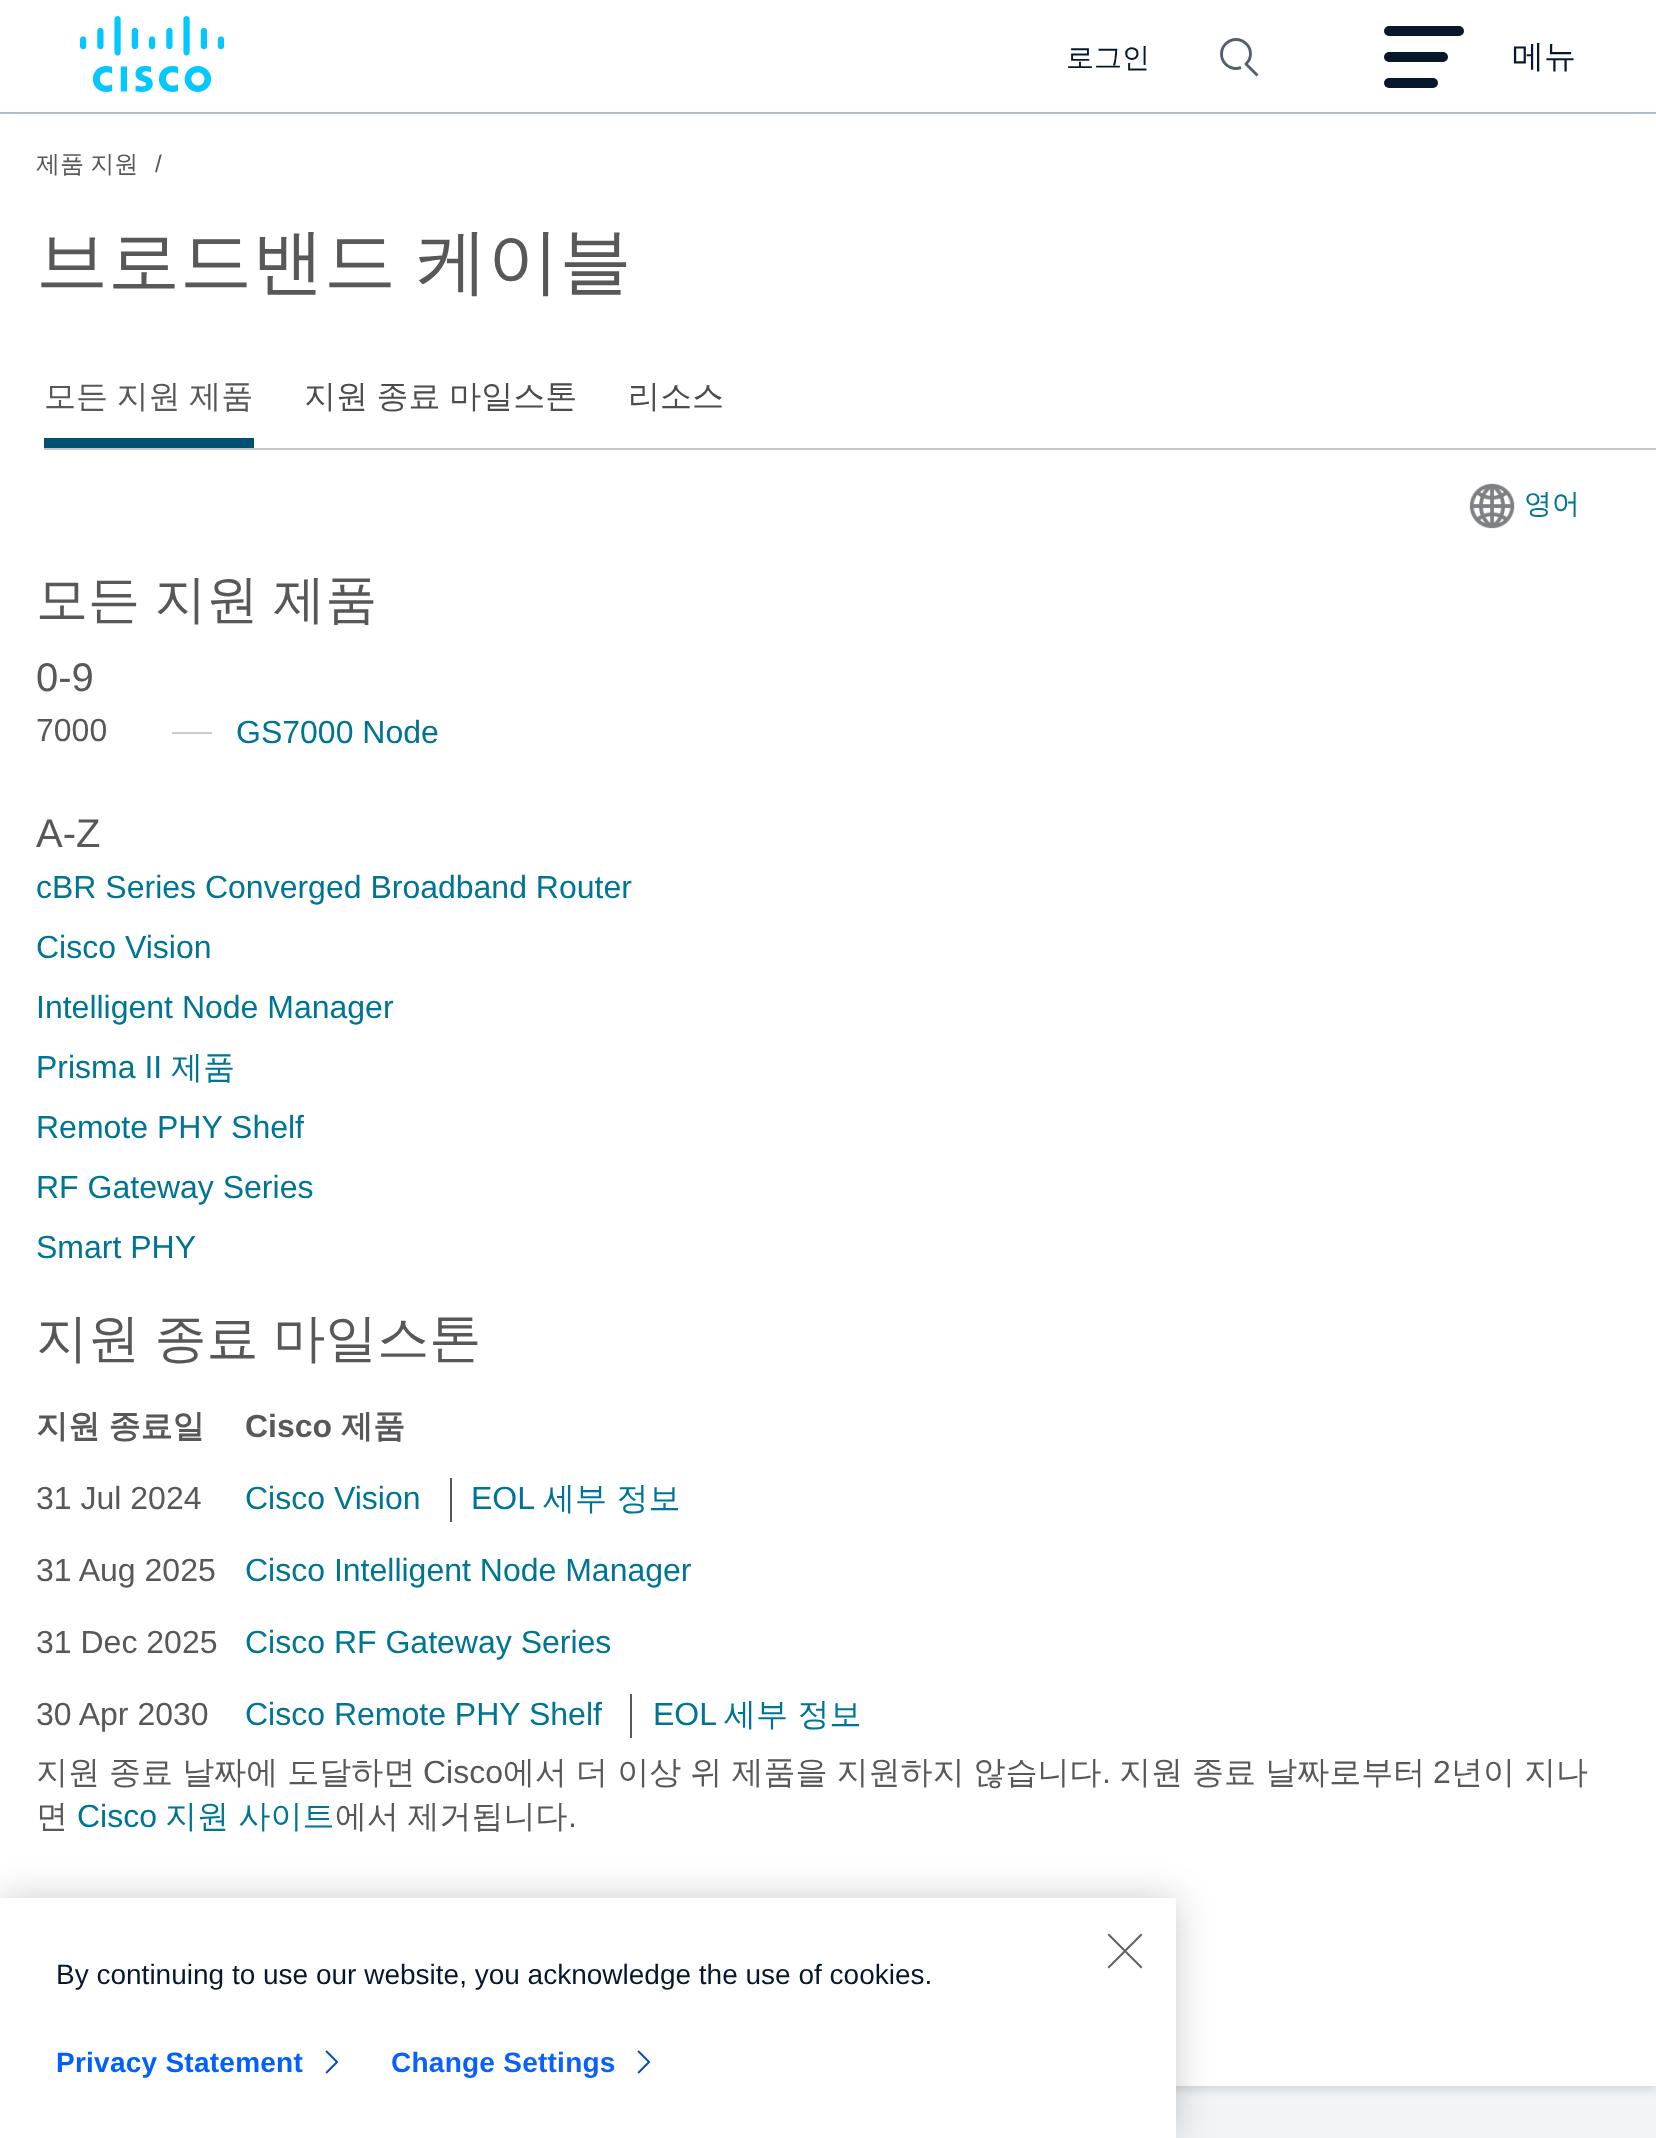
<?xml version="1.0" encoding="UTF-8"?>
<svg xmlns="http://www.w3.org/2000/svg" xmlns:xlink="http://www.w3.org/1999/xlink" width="1656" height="2138">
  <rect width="100%" height="100%" fill="#f2f5f7" />
  <rect width="1656" height="112" fill="#ffffff" />
  <rect y="112" width="1656" height="2" fill="#b9c1c9" />
  <image x="80" y="16" width="144" height="76" xlink:href="image1.png" />
  <path d="M 1241 67.5 c -1.5 0.5 -3.5 1 -5 1 c -8 0 -14.5 -6.5 -14.5 -14.5 c 0 -8 6.5 -14.5 14.5 -14.5 c 8 0 14.5 6.5 14.5 14.5 c 0 4 -2 7.5 -4.5 10 l 11.5 11.5" fill="none" stroke="#536070" stroke-width="2.9" stroke-linejoin="round" />
  <rect x="1384" y="26" width="80" height="10" rx="5" fill="#07182d" />
  <rect x="1384" y="52" width="64" height="10" rx="5" fill="#07182d" />
  <rect x="1384" y="78" width="54" height="10" rx="5" fill="#07182d" />
  <rect y="118" width="1656" height="1972" fill="#000000" fill-opacity="0.12" filter="blur(5px)" />
  <rect y="114" width="1656" height="1972" fill="#ffffff" />
  <rect x="44" y="448" width="1612" height="2" fill="#c6c7ca" />
  <rect x="44" y="438" width="210" height="10" fill="#005073" />
  <image x="1469" y="483" width="46" height="46" xlink:href="image2.png" />
  <rect x="172" y="732" width="40" height="2" fill="#cccccc" />
  <rect x="450" y="1478" width="2" height="44" fill="#58585b" />
  <rect x="630" y="1694" width="2" height="44" fill="#58585b" />
  <rect y="1898" width="1176" height="240" fill="#000000" fill-opacity="0.2" filter="blur(18px)" />
  <rect y="1898" width="1176" height="240" fill="#ffffff" />
  <image x="1107" y="1933" width="36" height="36" xlink:href="image3.png" />
  <image x="325" y="2050" width="13" height="24" xlink:href="image4.png" />
  <image x="637" y="2050" width="13" height="24" xlink:href="image4.png" />
  <text x="1066" y="67" style="font-family: WenQuanYi Zen Hei; font-size: 28px; font-weight: 500; fill: #07182d">로그인</text>
  <text x="1512" y="67" style="font-family: WenQuanYi Zen Hei; font-size: 32px; font-weight: 500; fill: #07182d">메뉴</text>
  <text x="36" y="172" word-spacing="-1" style="font-family: WenQuanYi Zen Hei; font-size: 24px; font-weight: 500; fill: #58585b">제품 지원</text>
  <text x="155" y="172" style="font-family: Liberation Sans; font-size: 24px; fill: #58585b">/</text>
  <text x="36" y="286" word-spacing="-2" style="font-family: WenQuanYi Zen Hei; font-size: 72px; font-weight: 500; fill: #58585b">브로드밴드 케이블</text>
  <text x="44" y="407" word-spacing="-1" style="font-family: WenQuanYi Zen Hei; font-size: 32px; font-weight: 500; fill: #58585b">모든 지원 제품</text>
  <text x="304" y="407" word-spacing="-1" style="font-family: WenQuanYi Zen Hei; font-size: 32px; font-weight: 500; fill: #4d4c4c">지원 종료 마일스톤</text>
  <text x="628" y="407" style="font-family: WenQuanYi Zen Hei; font-size: 32px; font-weight: 500; fill: #4d4c4c">리소스</text>
  <text x="1524" y="513" style="font-family: WenQuanYi Zen Hei; font-size: 28px; font-weight: 500; fill: #007493">영어</text>
  <text x="36" y="617" word-spacing="-1" style="font-family: WenQuanYi Zen Hei; font-size: 52px; font-weight: 500; fill: #58585b">모든 지원 제품</text>
  <text x="36" y="691" style="font-family: Liberation Sans; font-size: 40px; fill: #58585b">0-9</text>
  <text x="36" y="741" style="font-family: Liberation Sans; font-size: 32px; fill: #58585b">7000</text>
  <text x="236" y="743" style="font-family: Liberation Sans; font-size: 32px; fill: #007493">GS7000 Node</text>
  <text x="36" y="847" style="font-family: Liberation Sans; font-size: 40px; fill: #58585b">A-Z</text>
  <text x="36" y="898" style="font-family: Liberation Sans; font-size: 32px; fill: #007493">cBR Series Converged Broadband Router</text>
  <text x="36" y="958" style="font-family: Liberation Sans; font-size: 32px; fill: #007493">Cisco Vision</text>
  <text x="36" y="1018" style="font-family: Liberation Sans; font-size: 32px; fill: #007493">Intelligent Node Manager</text>
  <text x="36" y="1078" style="font-family: Liberation Sans; font-size: 32px; fill: #007493">Prisma II</text>
  <text x="171" y="1078" style="font-family: WenQuanYi Zen Hei; font-size: 32px; font-weight: 500; fill: #007493">제품</text>
  <text x="36" y="1138" style="font-family: Liberation Sans; font-size: 32px; fill: #007493">Remote PHY Shelf</text>
  <text x="36" y="1198" style="font-family: Liberation Sans; font-size: 32px; fill: #007493">RF Gateway Series</text>
  <text x="36" y="1258" style="font-family: Liberation Sans; font-size: 32px; fill: #007493">Smart PHY</text>
  <text x="36" y="1356" word-spacing="-1" style="font-family: WenQuanYi Zen Hei; font-size: 52px; font-weight: 500; fill: #58585b">지원 종료 마일스톤</text>
  <text x="36" y="1437" word-spacing="-1" style="font-family: WenQuanYi Zen Hei; font-size: 32px; font-weight: bold; fill: #58585b">지원 종료일</text>
  <text x="245" y="1437" style="font-family: Liberation Sans; font-size: 32px; font-weight: bold; fill: #58585b">Cisco</text>
  <text x="341" y="1437" style="font-family: WenQuanYi Zen Hei; font-size: 32px; font-weight: bold; fill: #58585b">제품</text>
  <text x="36" y="1509" style="font-family: Liberation Sans; font-size: 32px; fill: #58585b">31 Jul 2024</text>
  <text x="245" y="1509" style="font-family: Liberation Sans; font-size: 32px; fill: #007493">Cisco Vision</text>
  <text x="471" y="1509" style="font-family: Liberation Sans; font-size: 32px; fill: #007493">EOL</text>
  <text x="543" y="1509" style="font-family: WenQuanYi Zen Hei; font-size: 32px; font-weight: 500; fill: #007493">세부 정보</text>
  <text x="36" y="1581" style="font-family: Liberation Sans; font-size: 32px; fill: #58585b">31 Aug 2025</text>
  <text x="245" y="1581" style="font-family: Liberation Sans; font-size: 32px; fill: #007493">Cisco Intelligent Node Manager</text>
  <text x="36" y="1653" style="font-family: Liberation Sans; font-size: 32px; fill: #58585b">31 Dec 2025</text>
  <text x="245" y="1653" style="font-family: Liberation Sans; font-size: 32px; fill: #007493">Cisco RF Gateway Series</text>
  <text x="36" y="1725" style="font-family: Liberation Sans; font-size: 32px; fill: #58585b">30 Apr 2030</text>
  <text x="245" y="1725" style="font-family: Liberation Sans; font-size: 32px; fill: #007493">Cisco Remote PHY Shelf</text>
  <text x="653" y="1725" style="font-family: Liberation Sans; font-size: 32px; fill: #007493">EOL</text>
  <text x="724" y="1725" style="font-family: WenQuanYi Zen Hei; font-size: 32px; font-weight: 500; fill: #007493">세부 정보</text>
  <text x="36" y="1783" word-spacing="-0.5" style="font-family: WenQuanYi Zen Hei; font-size: 32px; font-weight: 500; fill: #58585b">지원 종료 날짜에 도달하면</text>
  <text x="423" y="1783" style="font-family: Liberation Sans; font-size: 32px; fill: #58585b">Cisco</text>
  <text x="503" y="1783" word-spacing="-0.5" style="font-family: WenQuanYi Zen Hei; font-size: 32px; font-weight: 500; fill: #58585b">에서 더 이상 위 제품을 지원하지 않습니다</text>
  <text x="1102" y="1783" style="font-family: Liberation Sans; font-size: 32px; fill: #58585b">.</text>
  <text x="1119" y="1783" word-spacing="-0.5" style="font-family: WenQuanYi Zen Hei; font-size: 32px; font-weight: 500; fill: #58585b">지원 종료 날짜로부터</text>
  <text x="1433" y="1783" style="font-family: Liberation Sans; font-size: 32px; fill: #58585b">2</text>
  <text x="1451" y="1783" word-spacing="-0.5" style="font-family: WenQuanYi Zen Hei; font-size: 32px; font-weight: 500; fill: #58585b">년이 지나</text>
  <text x="36" y="1827" style="font-family: WenQuanYi Zen Hei; font-size: 32px; font-weight: 500; fill: #58585b">면</text>
  <text x="77" y="1827" style="font-family: Liberation Sans; font-size: 32px; fill: #007493">Cisco</text>
  <text x="165" y="1827" style="font-family: WenQuanYi Zen Hei; font-size: 32px; font-weight: 500; fill: #007493">지원 사이트</text>
  <text x="335" y="1827" word-spacing="-1" style="font-family: WenQuanYi Zen Hei; font-size: 32px; font-weight: 500; fill: #58585b">에서 제거됩니다</text>
  <text x="568" y="1827" style="font-family: Liberation Sans; font-size: 32px; fill: #58585b">.</text>
  <text x="56" y="1984" style="font-family: Liberation Sans; font-size: 28px; fill: #07182d">By continuing to use our website, you acknowledge the use of cookies.</text>
  <text x="56" y="2072" style="font-family: Liberation Sans; font-size: 28px; font-weight: bold; letter-spacing: 0.25px; fill: #0060ff">Privacy Statement</text>
  <text x="391" y="2072" style="font-family: Liberation Sans; font-size: 28px; font-weight: bold; letter-spacing: 0.25px; fill: #0a60ff">Change Settings</text>
</svg>
